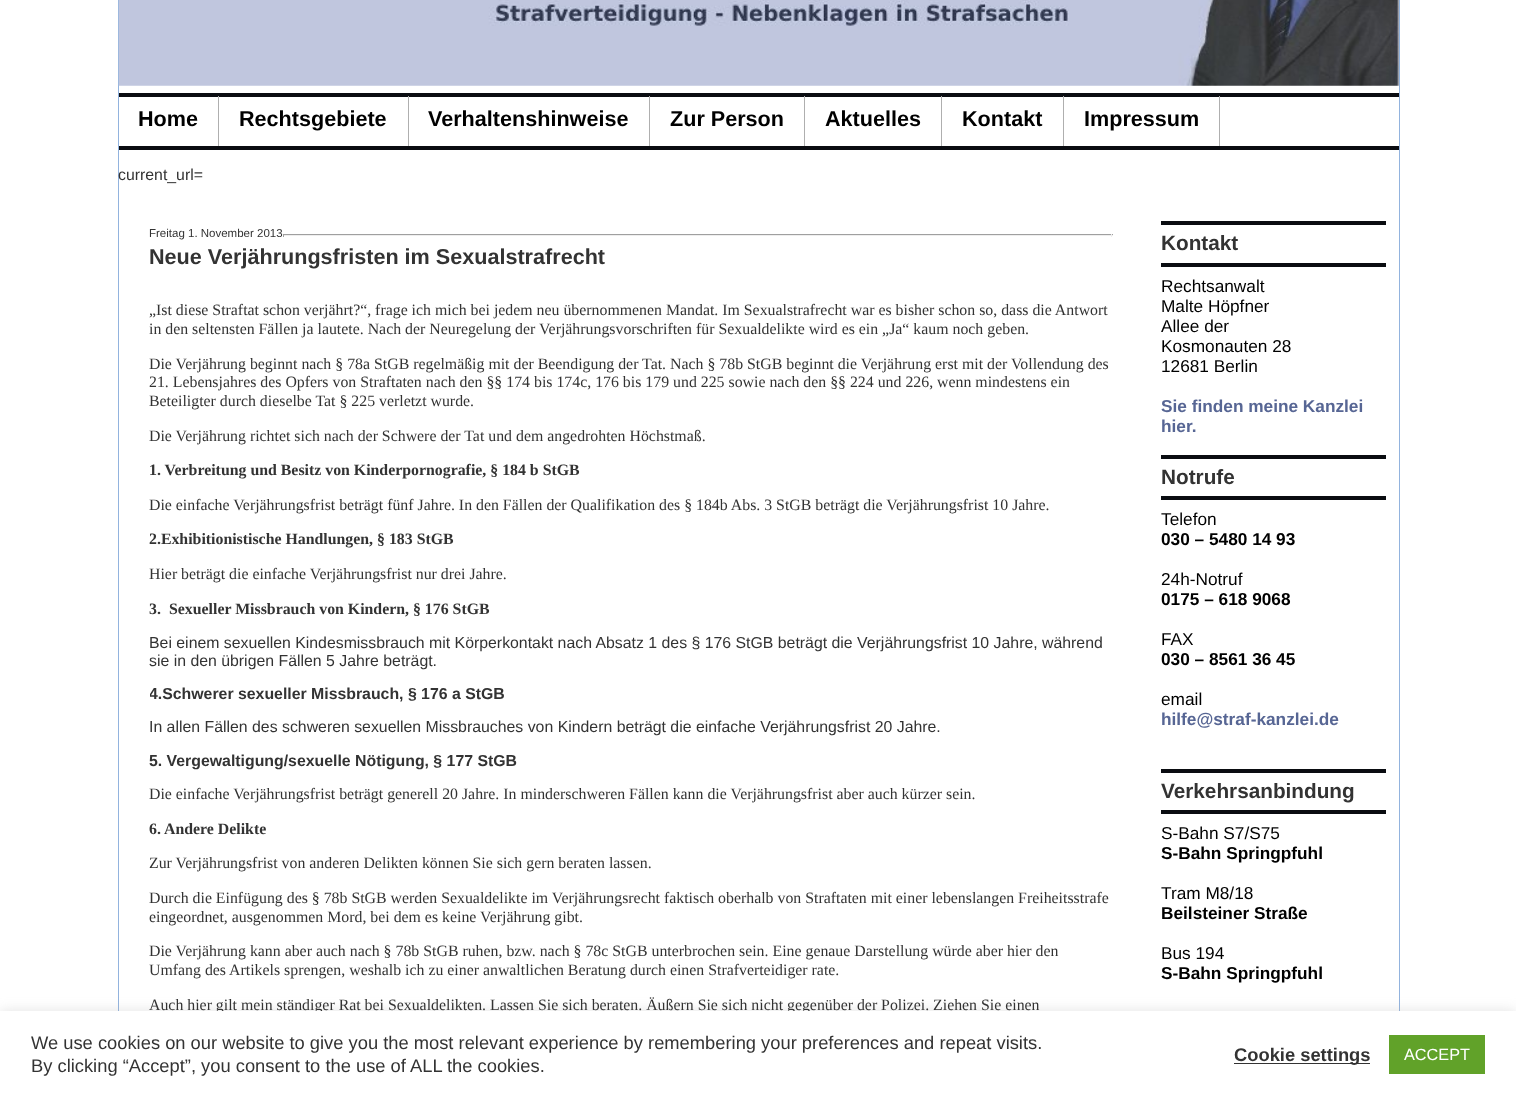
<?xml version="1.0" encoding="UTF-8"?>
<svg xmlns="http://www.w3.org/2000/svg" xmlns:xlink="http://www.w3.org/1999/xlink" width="1516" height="1097">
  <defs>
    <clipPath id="clip1"><rect x="150" y="286" width="963" height="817" /></clipPath>
  </defs>
  <rect width="100%" height="100%" fill="#ffffff" />
  <rect x="118.5" y="-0.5" width="1281" height="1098" fill="none" stroke="#92b3de" />
  <image x="118" y="0" width="1281" height="86" xlink:href="image1.png" />
  <rect x="119" y="93" width="1280" height="4" fill="#0a0c11" />
  <rect x="119" y="146" width="1280" height="4" fill="#0a0c11" />
  <rect x="218" y="96" width="1" height="50" fill="#afafaf" />
  <rect x="408" y="96" width="1" height="50" fill="#afafaf" />
  <rect x="649" y="96" width="1" height="50" fill="#afafaf" />
  <rect x="804" y="96" width="1" height="50" fill="#afafaf" />
  <rect x="941" y="96" width="1" height="50" fill="#afafaf" />
  <rect x="1063" y="96" width="1" height="50" fill="#afafaf" />
  <rect x="1219" y="96" width="1" height="50" fill="#afafaf" />
  <rect x="283" y="234" width="830" height="1" fill="#9f9f9f" />
  <rect x="1111" y="234" width="1" height="3" fill="#eeeeee" />
  <rect x="283" y="235" width="830" height="1" fill="#eeeeee" />
  <rect x="283" y="234" width="1" height="3" fill="#9f9f9f" />
  <rect x="1161" y="221" width="225" height="4" fill="#0a0c11" />
  <rect x="1161" y="263" width="225" height="4" fill="#0a0c11" />
  <rect x="1161" y="455" width="225" height="4" fill="#0a0c11" />
  <rect x="1161" y="496" width="225" height="4" fill="#0a0c11" />
  <rect x="1161" y="769" width="225" height="4" fill="#0a0c11" />
  <rect x="1161" y="810" width="225" height="4" fill="#0a0c11" />
  <rect y="1010" width="1516" height="86" fill="#acabab" fill-opacity="0.3" filter="blur(6px)" />
  <text x="138" y="126" style="font-family: Liberation Sans; font-size: 21.6px; font-weight: bold; fill: #000000">Home</text>
  <text x="239" y="126" style="font-family: Liberation Sans; font-size: 21.6px; font-weight: bold; fill: #000000">Rechtsgebiete</text>
  <text x="428" y="126" style="font-family: Liberation Sans; font-size: 21.6px; font-weight: bold; fill: #000000">Verhaltenshinweise</text>
  <text x="670" y="126" style="font-family: Liberation Sans; font-size: 21.6px; font-weight: bold; fill: #000000">Zur Person</text>
  <text x="825" y="126" style="font-family: Liberation Sans; font-size: 21.6px; font-weight: bold; fill: #000000">Aktuelles</text>
  <text x="962" y="126" style="font-family: Liberation Sans; font-size: 21.6px; font-weight: bold; fill: #000000">Kontakt</text>
  <text x="1084" y="126" style="font-family: Liberation Sans; font-size: 21.6px; font-weight: bold; fill: #000000">Impressum</text>
  <text x="118" y="180" style="font-family: Liberation Sans; font-size: 15.85px; fill: #333333">current_url=</text>
  <text x="149" y="237" style="font-family: Liberation Sans; font-size: 11.5px; fill: #333333">Freitag 1. November 2013</text>
  <text x="149" y="264" style="font-family: Liberation Sans; font-size: 21.6px; font-weight: bold; fill: #333333">Neue Verjährungsfristen im Sexualstrafrecht</text>
  <text x="149" y="315" style="font-family: Liberation Serif; font-size: 15.85px; fill: #333333">„Ist diese Straftat schon verjährt?“, frage ich mich bei jedem neu übernommenen Mandat. Im Sexualstrafrecht war es bisher schon so, dass die Antwort</text>
  <text x="149" y="334" style="font-family: Liberation Serif; font-size: 15.85px; fill: #333333">in den seltensten Fällen ja lautete. Nach der Neuregelung der Verjährungsvorschriften für Sexualdelikte wird es ein „Ja“ kaum noch geben.</text>
  <text x="149" y="369" style="font-family: Liberation Serif; font-size: 15.85px; fill: #333333">Die Verjährung beginnt nach § 78a StGB regelmäßig mit der Beendigung der Tat. Nach § 78b StGB beginnt die Verjährung erst mit der Vollendung des</text>
  <text x="149" y="387" style="font-family: Liberation Serif; font-size: 15.85px; fill: #333333">21. Lebensjahres des Opfers von Straftaten nach den §§ 174 bis 174c, 176 bis 179 und 225 sowie nach den §§ 224 und 226, wenn mindestens ein</text>
  <text x="149" y="406" style="font-family: Liberation Serif; font-size: 15.85px; fill: #333333">Beteiligter durch dieselbe Tat § 225 verletzt wurde.</text>
  <text x="149" y="441" style="font-family: Liberation Serif; font-size: 15.85px; fill: #333333">Die Verjährung richtet sich nach der Schwere der Tat und dem angedrohten Höchstmaß.</text>
  <text x="149" y="475" style="font-family: Liberation Serif; font-size: 15.85px; font-weight: bold; fill: #333333">1. Verbreitung und Besitz von Kinderpornografie, § 184 b StGB</text>
  <text x="149" y="510" style="font-family: Liberation Serif; font-size: 15.85px; fill: #333333">Die einfache Verjährungsfrist beträgt fünf Jahre. In den Fällen der Qualifikation des § 184b Abs. 3 StGB beträgt die Verjährungsfrist 10 Jahre.</text>
  <text x="149" y="544" style="font-family: Liberation Serif; font-size: 15.85px; font-weight: bold; fill: #333333">2.Exhibitionistische Handlungen, § 183 StGB</text>
  <text x="149" y="579" style="font-family: Liberation Serif; font-size: 15.85px; fill: #333333">Hier beträgt die einfache Verjährungsfrist nur drei Jahre.</text>
  <text x="149" y="614" style="font-family: Liberation Serif; font-size: 15.85px; font-weight: bold; fill: #333333">3.</text>
  <text x="169" y="614" style="font-family: Liberation Serif; font-size: 15.85px; font-weight: bold; fill: #333333">Sexueller Missbrauch von Kindern, § 176 StGB</text>
  <text x="149" y="648" style="font-family: Liberation Sans; font-size: 15.85px; fill: #333333">Bei einem sexuellen Kindesmissbrauch mit Körperkontakt nach Absatz 1 des § 176 StGB beträgt die Verjährungsfrist 10 Jahre, während</text>
  <text x="149" y="666" style="font-family: Liberation Sans; font-size: 15.85px; fill: #333333">sie in den übrigen Fällen 5 Jahre beträgt.</text>
  <g clip-path="url(#clip1)">
    <text x="149" y="699" style="font-family: Liberation Sans; font-size: 15.85px; font-weight: bold; fill: #333333">4.Schwerer sexueller Missbrauch, § 176 a StGB</text>
  </g>
  <text x="149" y="732" style="font-family: Liberation Sans; font-size: 15.85px; fill: #333333">In allen Fällen des schweren sexuellen Missbrauches von Kindern beträgt die einfache Verjährungsfrist 20 Jahre.</text>
  <text x="149" y="766" style="font-family: Liberation Sans; font-size: 15.85px; font-weight: bold; fill: #333333">5. Vergewaltigung/sexuelle Nötigung, § 177 StGB</text>
  <text x="149" y="799" style="font-family: Liberation Serif; font-size: 15.85px; fill: #333333">Die einfache Verjährungsfrist beträgt generell 20 Jahre. In minderschweren Fällen kann die Verjährungsfrist aber auch kürzer sein.</text>
  <text x="149" y="834" style="font-family: Liberation Serif; font-size: 15.85px; font-weight: bold; fill: #333333">6. Andere Delikte</text>
  <text x="149" y="868" style="font-family: Liberation Serif; font-size: 15.85px; fill: #333333">Zur Verjährungsfrist von anderen Delikten können Sie sich gern beraten lassen.</text>
  <text x="149" y="903" style="font-family: Liberation Serif; font-size: 15.85px; fill: #333333">Durch die Einfügung des § 78b StGB werden Sexualdelikte im Verjährungsrecht faktisch oberhalb von Straftaten mit einer lebenslangen Freiheitsstrafe</text>
  <text x="149" y="922" style="font-family: Liberation Serif; font-size: 15.85px; fill: #333333">eingeordnet, ausgenommen Mord, bei dem es keine Verjährung gibt.</text>
  <text x="149" y="956" style="font-family: Liberation Serif; font-size: 15.85px; fill: #333333">Die Verjährung kann aber auch nach § 78b StGB ruhen, bzw. nach § 78c StGB unterbrochen sein. Eine genaue Darstellung würde aber hier den</text>
  <text x="149" y="975" style="font-family: Liberation Serif; font-size: 15.85px; fill: #333333">Umfang des Artikels sprengen, weshalb ich zu einer anwaltlichen Beratung durch einen Strafverteidiger rate.</text>
  <text x="149" y="1010" style="font-family: Liberation Serif; font-size: 15.85px; fill: #333333">Auch hier gilt mein ständiger Rat bei Sexualdelikten. Lassen Sie sich beraten. Äußern Sie sich nicht gegenüber der Polizei. Ziehen Sie einen</text>
  <text x="1161" y="250" style="font-family: Liberation Sans; font-size: 20.75px; font-weight: bold; fill: #333333">Kontakt</text>
  <text x="1161" y="292" style="font-family: Liberation Sans; font-size: 17.25px; fill: #000000">Rechtsanwalt</text>
  <text x="1161" y="312" style="font-family: Liberation Sans; font-size: 17.25px; fill: #000000">Malte Höpfner</text>
  <text x="1161" y="332" style="font-family: Liberation Sans; font-size: 17.25px; fill: #000000">Allee der</text>
  <text x="1161" y="352" style="font-family: Liberation Sans; font-size: 17.25px; fill: #000000">Kosmonauten 28</text>
  <text x="1161" y="372" style="font-family: Liberation Sans; font-size: 17.25px; fill: #000000">12681 Berlin</text>
  <text x="1161" y="412" style="font-family: Liberation Sans; font-size: 17.25px; font-weight: bold; fill: #576694">Sie finden meine Kanzlei</text>
  <text x="1161" y="432" style="font-family: Liberation Sans; font-size: 17.25px; font-weight: bold; fill: #576694">hier.</text>
  <text x="1161" y="484" style="font-family: Liberation Sans; font-size: 20.75px; font-weight: bold; fill: #333333">Notrufe</text>
  <text x="1161" y="525" style="font-family: Liberation Sans; font-size: 17.25px; fill: #000000">Telefon</text>
  <text x="1161" y="545" style="font-family: Liberation Sans; font-size: 17.25px; font-weight: bold; fill: #000000">030 – 5480 14 93</text>
  <text x="1161" y="585" style="font-family: Liberation Sans; font-size: 17.25px; fill: #000000">24h-Notruf</text>
  <text x="1161" y="605" style="font-family: Liberation Sans; font-size: 17.25px; font-weight: bold; fill: #000000">0175 – 618 9068</text>
  <text x="1161" y="645" style="font-family: Liberation Sans; font-size: 17.25px; fill: #000000">FAX</text>
  <text x="1161" y="665" style="font-family: Liberation Sans; font-size: 17.25px; font-weight: bold; fill: #000000">030 – 8561 36 45</text>
  <text x="1161" y="705" style="font-family: Liberation Sans; font-size: 17.25px; fill: #000000">email</text>
  <text x="1161" y="725" style="font-family: Liberation Sans; font-size: 17.25px; font-weight: bold; fill: #576694">hilfe@straf-kanzlei.de</text>
  <text x="1161" y="798" style="font-family: Liberation Sans; font-size: 20.75px; font-weight: bold; fill: #333333">Verkehrsanbindung</text>
  <text x="1161" y="839" style="font-family: Liberation Sans; font-size: 17.25px; fill: #000000">S-Bahn S7/S75</text>
  <text x="1161" y="859" style="font-family: Liberation Sans; font-size: 17.25px; font-weight: bold; fill: #000000">S-Bahn Springpfuhl</text>
  <text x="1161" y="899" style="font-family: Liberation Sans; font-size: 17.25px; fill: #000000">Tram M8/18</text>
  <text x="1161" y="919" style="font-family: Liberation Sans; font-size: 17.25px; font-weight: bold; fill: #000000">Beilsteiner Straße</text>
  <text x="1161" y="959" style="font-family: Liberation Sans; font-size: 17.25px; fill: #000000">Bus 194</text>
  <text x="1161" y="979" style="font-family: Liberation Sans; font-size: 17.25px; font-weight: bold; fill: #000000">S-Bahn Springpfuhl</text>
  <rect y="1011" width="1516" height="86" fill="#ffffff" />
  <text x="31" y="1049" style="font-family: Liberation Sans; font-size: 18.33px; fill: #333333">We use cookies on our website to give you the most relevant experience by remembering your preferences and repeat visits.</text>
  <text x="31" y="1072" style="font-family: Liberation Sans; font-size: 18.33px; fill: #333333">By clicking “Accept”, you consent to the use of ALL the cookies.</text>
  <rect x="1234" y="1063" width="136" height="1" fill="#333333" />
  <text x="1234" y="1061" style="font-family: Liberation Sans; font-size: 18.33px; font-weight: bold; fill: #333333">Cookie settings</text>
  <rect x="1389" y="1035" width="96" height="39" fill="#61a229" />
  <text x="1404" y="1060" style="font-family: Liberation Sans; font-size: 16.25px; fill: #ffffff">ACCEPT</text>
</svg>
